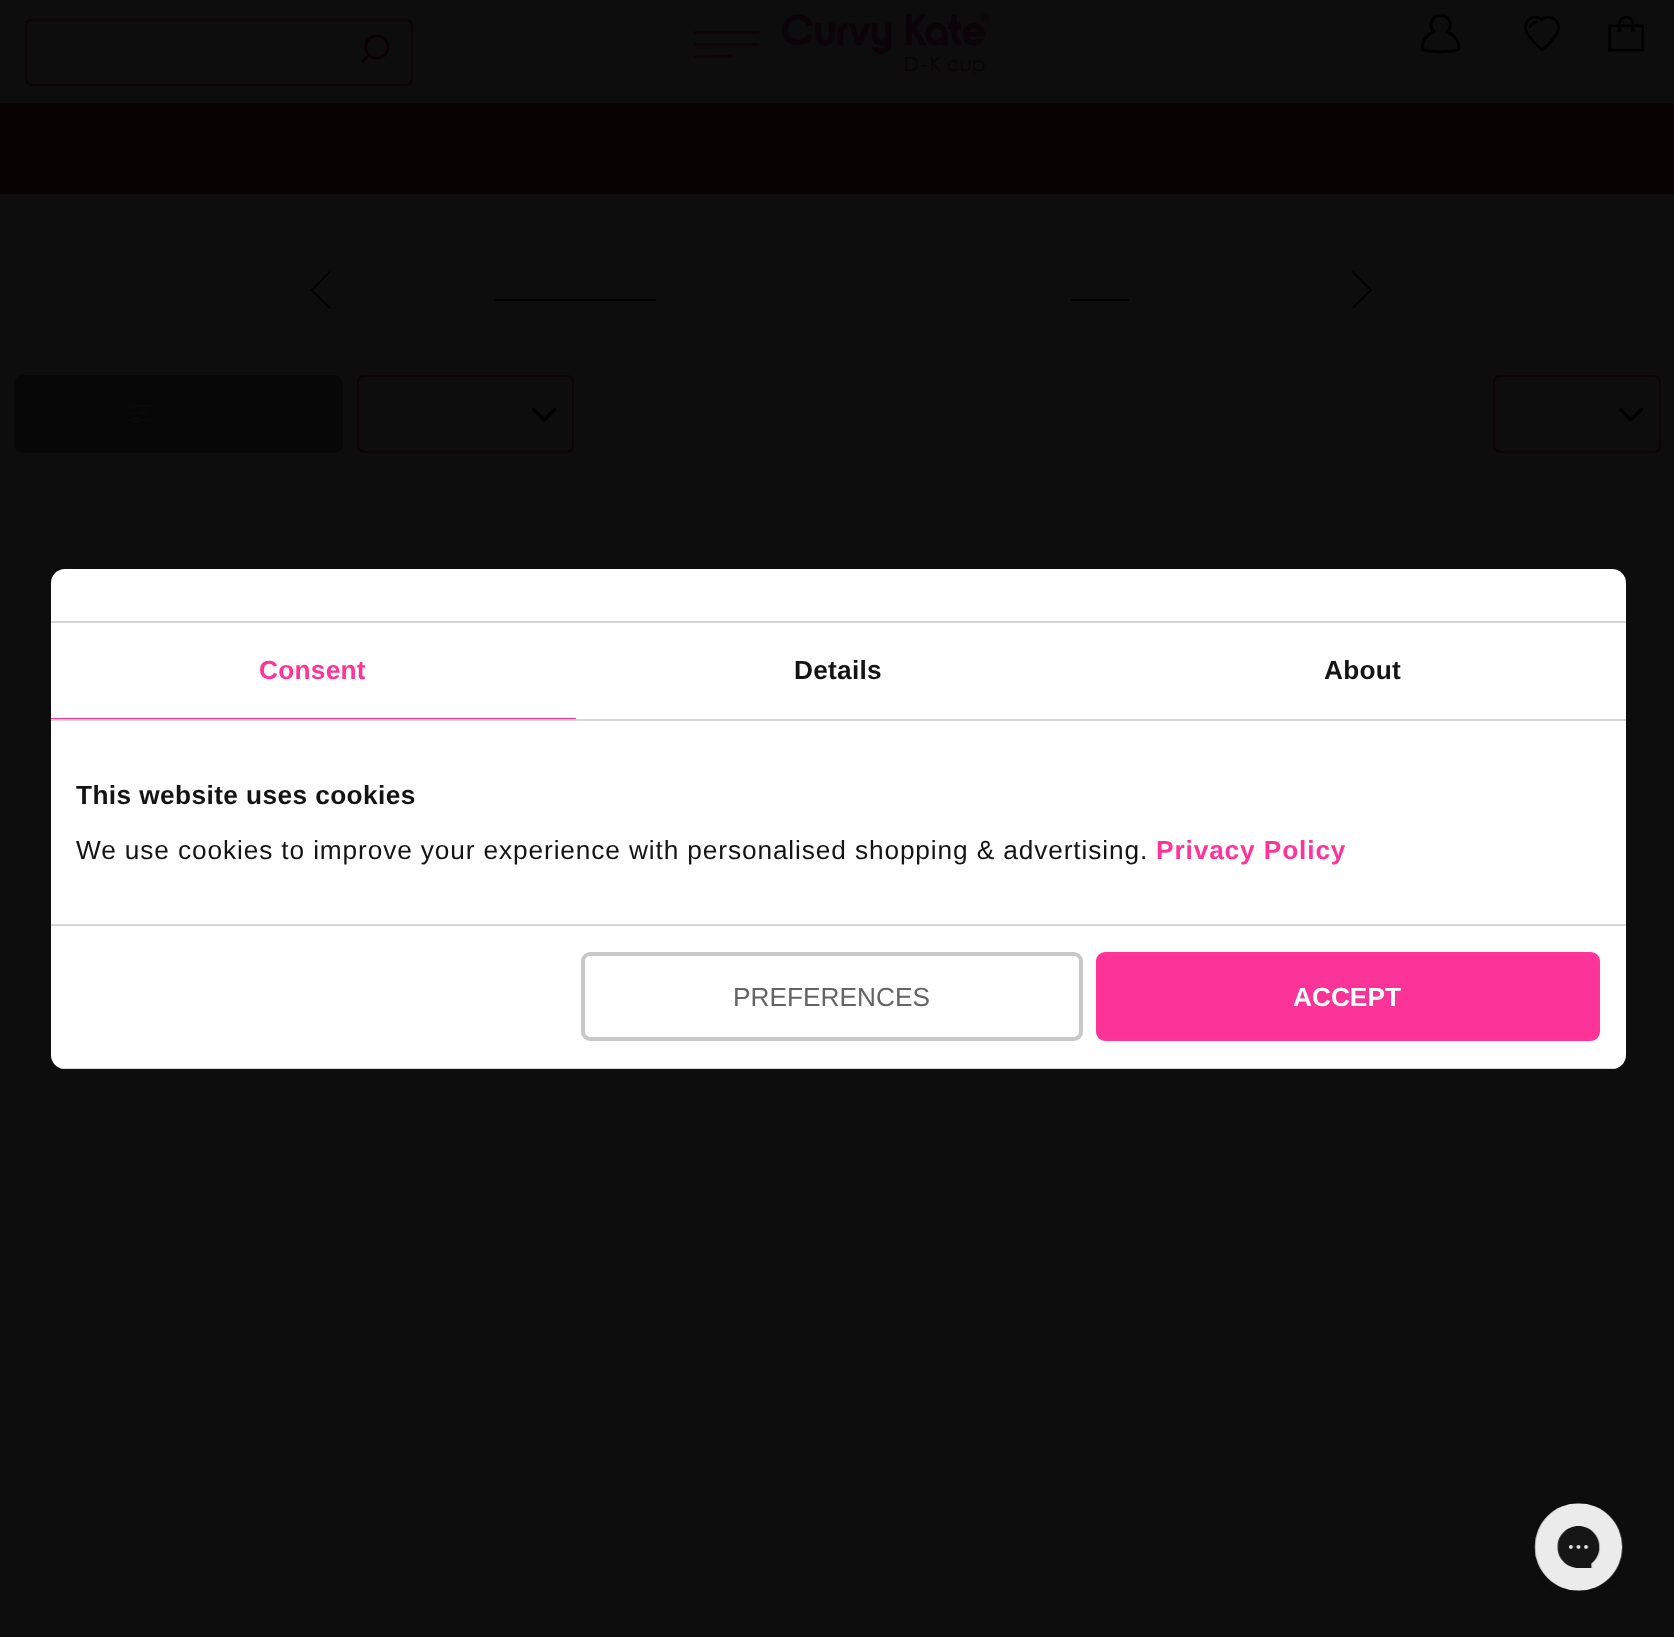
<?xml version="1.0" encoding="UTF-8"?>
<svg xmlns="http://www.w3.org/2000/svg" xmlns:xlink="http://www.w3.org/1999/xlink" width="1674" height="1637">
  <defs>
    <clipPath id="clip1"><rect x="51" y="569" width="1575" height="500" rx="14" /></clipPath>
  </defs>
  <rect width="100%" height="100%" fill="#0d0d0d" />
  <rect x="26" y="20" width="386" height="65" rx="6" fill="none" stroke="#0d0308" stroke-width="2" />
  <image x="361" y="34" width="29" height="29" xlink:href="image1.png" />
  <path d="M 695 32.5 h 63 m -63 12 h 63 m -63 12.5 l 35.5 -0.5" fill="none" stroke="#0d0308" stroke-width="2.6" stroke-linecap="round" stroke-linejoin="round" />
  <image x="782" y="14" width="207" height="61" xlink:href="image2.png" />
  <image x="1421" y="14" width="40" height="40" xlink:href="image3.png" />
  <image x="1524" y="15" width="36" height="37" xlink:href="image4.png" />
  <image x="1608" y="15" width="36" height="37" xlink:href="image5.png" />
  <rect y="103" width="1674" height="91" fill="#090203" />
  <path d="M 329.5 309 l -19 -19 l 19 -19 l 1 1 l -17.5 18 l 17.5 18 z" fill="#000000" />
  <rect x="494" y="299" width="162" height="2" fill="#000000" />
  <rect x="1071" y="299" width="58" height="2" fill="#000000" />
  <path d="M 1353 309 l -1.5 -1 l 18 -18 l -18 -18 l 1.5 -1 l 19 19 z" fill="#000000" />
  <rect x="14" y="375" width="329" height="78" rx="9" fill="#070707" />
  <image x="126" y="402" width="24" height="21" xlink:href="image6.png" />
  <image x="532" y="407" width="25" height="15" xlink:href="image7.png" />
  <rect x="358" y="376" width="215" height="76" rx="6" fill="none" stroke="#0d0308" stroke-width="2" />
  <image x="1618" y="407" width="26" height="15" xlink:href="image8.png" />
  <rect x="1494" y="376" width="166" height="76" rx="6" fill="none" stroke="#0d0308" stroke-width="2" />
  <rect x="51" y="569" width="1575" height="500" rx="14" fill="#ffffff" />
  <rect x="51" y="621" width="1575" height="2" fill="#d6d6d6" />
  <rect x="51" y="719" width="1575" height="2" fill="#d6d6d6" />
  <rect x="51" y="718" width="525" height="1" fill="#ff3399" />
  <rect x="51" y="924" width="1575" height="2" fill="#d6d6d6" />
  <g clip-path="url(#clip1)">
    <rect x="60" y="1068" width="1557" height="1" fill="#d6d6d6" />
  </g>
  <rect x="583" y="954" width="498" height="85" rx="7" fill="none" stroke="#c8c8c8" stroke-width="4" />
  <rect x="1098" y="954" width="500" height="85" rx="7" fill="#fa3399" stroke="#ff3399" stroke-width="4" />
  <image x="1534" y="1503" width="89" height="88" xlink:href="image9.png" />
  <text x="259" y="679" style="font-family: Liberation Sans; font-size: 26.25px; font-weight: bold; letter-spacing: 0.25px; fill: #ff3399">Consent</text>
  <text x="794" y="679" style="font-family: Liberation Sans; font-size: 26.25px; font-weight: bold; letter-spacing: 0.25px; fill: #141414">Details</text>
  <text x="1324" y="679" style="font-family: Liberation Sans; font-size: 26.25px; font-weight: bold; letter-spacing: 0.25px; fill: #141414">About</text>
  <text x="76" y="804" style="font-family: Liberation Sans; font-size: 26.25px; font-weight: bold; letter-spacing: 0.4px; fill: #141414">This website uses cookies</text>
  <text x="76" y="859" style="font-family: Liberation Sans; font-size: 26.25px; letter-spacing: 0.88px; fill: #141414">We use cookies to improve your experience with personalised shopping &amp; advertising.</text>
  <text x="1156" y="859" style="font-family: Liberation Sans; font-size: 26.25px; font-weight: bold; letter-spacing: 0.88px; fill: #ff3399">Privacy Policy</text>
  <text x="733" y="1006" style="font-family: Liberation Sans; font-size: 26.25px; fill: #646464">PREFERENCES</text>
  <text x="1293" y="1006" style="font-family: Liberation Sans; font-size: 26.25px; font-weight: bold; fill: #ffffff">ACCEPT</text>
</svg>
